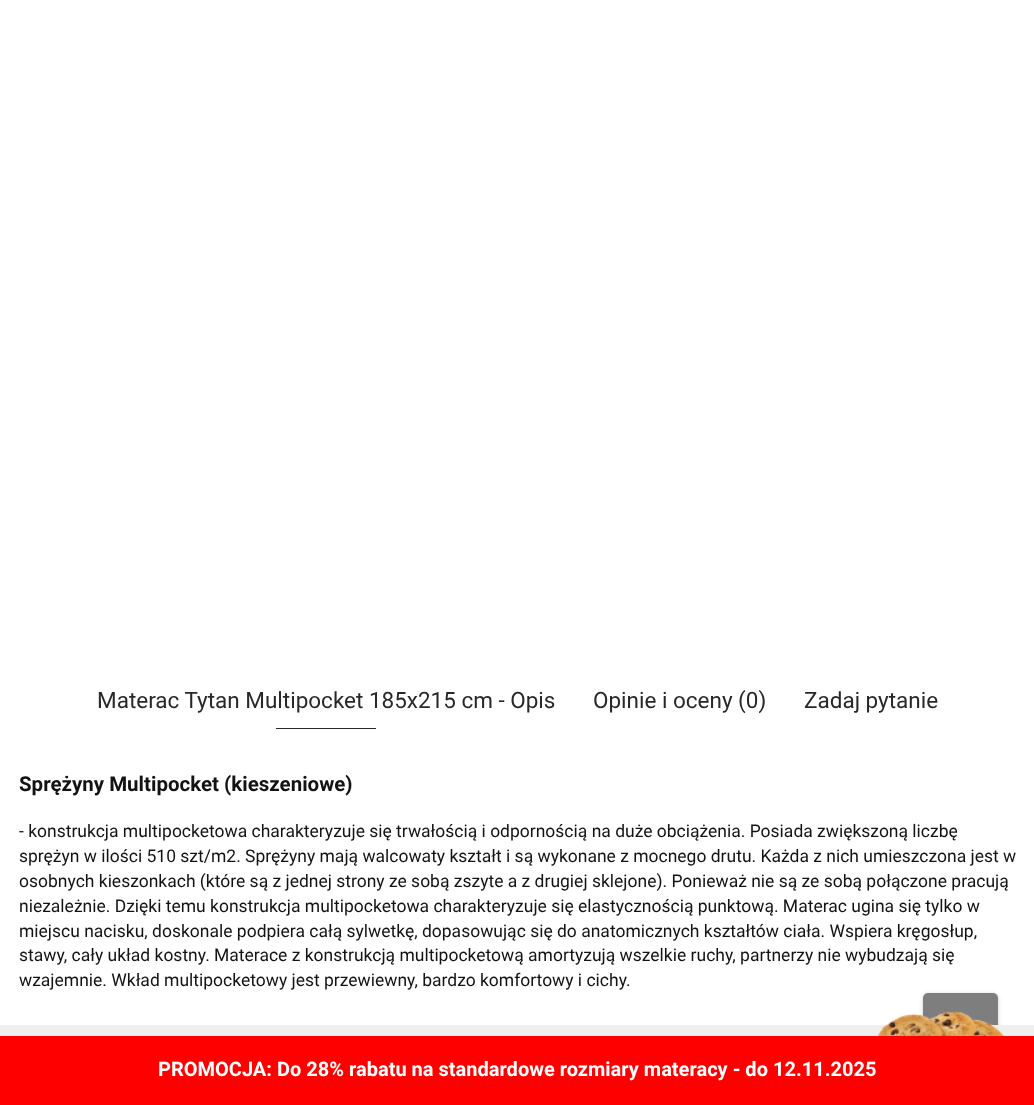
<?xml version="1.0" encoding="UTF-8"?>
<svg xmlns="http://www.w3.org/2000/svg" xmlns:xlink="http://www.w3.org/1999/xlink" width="1034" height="1105">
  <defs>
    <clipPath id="clip1"><path d="M 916 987 h 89 v 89 h -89 z m 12 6 h 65 c 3 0 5 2 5 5 v 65 c 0 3 -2 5 -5 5 h -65 c -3 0 -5 -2 -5 -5 v -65 c 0 -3 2 -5 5 -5 z" clip-rule="evenodd" /></clipPath>
  </defs>
  <rect width="100%" height="100%" fill="#ffffff" />
  <rect x="276" y="728" width="100" height="1" fill="#282828" />
  <g clip-path="url(#clip1)">
    <rect x="923" y="994" width="75" height="75" rx="5" fill="#000000" fill-opacity="0.2" filter="blur(2px)" />
  </g>
  <rect x="923" y="993" width="75" height="75" rx="5" fill="#282828" fill-opacity="0.6" />
  <rect y="1025" width="1034" height="11" fill="#efefef" />
  <image x="877" y="1011" width="127" height="25" xlink:href="image1.png" />
  <rect y="1036" width="1034" height="69" fill="#ff0000" />
  <text x="97" y="708" style="font-family: Roboto; font-size: 22.5px; fill: #282828">Materac Tytan Multipocket 185x215 cm - Opis</text>
  <text x="593" y="708" style="font-family: Roboto; font-size: 22.5px; fill: #282828">Opinie i oceny (0)</text>
  <text x="804" y="708" style="font-family: Roboto; font-size: 22.5px; fill: #282828">Zadaj pytanie</text>
  <text x="19" y="791" style="font-family: Roboto; font-size: 20.5px; font-weight: bold; fill: #131313">Sprężyny Multipocket (kieszeniowe)</text>
  <text x="19" y="837" style="font-family: Roboto; font-size: 17.5px; fill: #131313">- konstrukcja multipocketowa charakteryzuje się trwałością i odpornością na duże obciążenia. Posiada zwiększoną liczbę</text>
  <text x="19" y="862" style="font-family: Roboto; font-size: 17.5px; fill: #131313">sprężyn w ilości 510 szt/m2. Sprężyny mają walcowaty kształt i są wykonane z mocnego drutu. Każda z nich umieszczona jest w</text>
  <text x="19" y="887" style="font-family: Roboto; font-size: 17.5px; fill: #131313">osobnych kieszonkach (które są z jednej strony ze sobą zszyte a z drugiej sklejone). Ponieważ nie są ze sobą połączone pracują</text>
  <text x="19" y="912" style="font-family: Roboto; font-size: 17.5px; fill: #131313">niezależnie. Dzięki temu konstrukcja multipocketowa charakteryzuje się elastycznością punktową. Materac ugina się tylko w</text>
  <text x="19" y="937" style="font-family: Roboto; font-size: 17.5px; fill: #131313">miejscu nacisku, doskonale podpiera całą sylwetkę, dopasowując się do anatomicznych kształtów ciała. Wspiera kręgosłup,</text>
  <text x="19" y="961" style="font-family: Roboto; font-size: 17.5px; fill: #131313">stawy, cały układ kostny. Materace z konstrukcją multipocketową amortyzują wszelkie ruchy, partnerzy nie wybudzają się</text>
  <text x="19" y="986" style="font-family: Roboto; font-size: 17.5px; fill: #131313">wzajemnie. Wkład multipocketowy jest przewiewny, bardzo komfortowy i cichy.</text>
  <text x="158" y="1076" style="font-family: Roboto; font-size: 20px; font-weight: bold; fill: #ffffff">PROMOCJA: Do 28% rabatu na standardowe rozmiary materacy - do 12.11.2025</text>
</svg>
